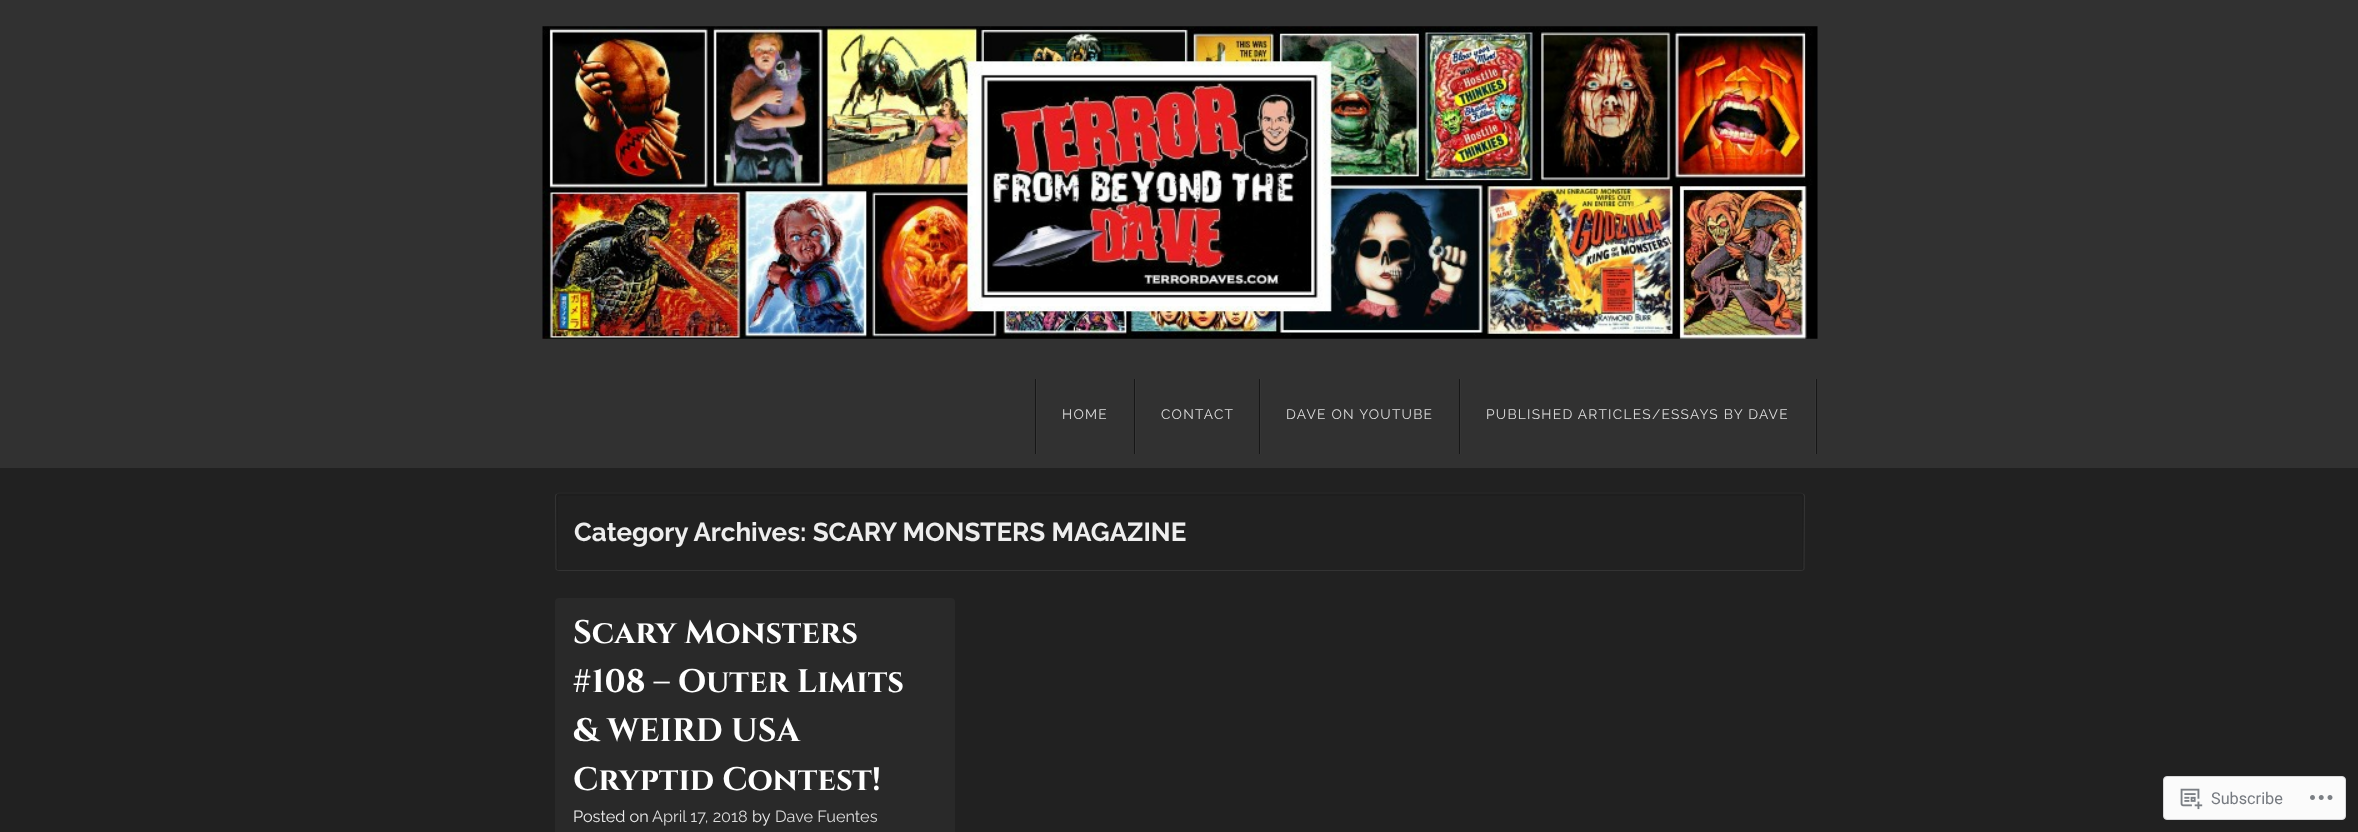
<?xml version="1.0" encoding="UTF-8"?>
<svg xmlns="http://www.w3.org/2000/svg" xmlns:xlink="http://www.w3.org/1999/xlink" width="2358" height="832">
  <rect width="100%" height="100%" fill="#212121" />
  <rect width="2358" height="468" fill="#313131" />
  <image x="542" y="26" width="1276" height="313" xlink:href="image1.png" />
  <rect x="1816" y="379" width="1" height="75" fill="#161616" />
  <rect x="1035" y="379" width="1" height="75" fill="#161616" />
  <rect x="1036" y="379" width="1" height="75" fill="#363636" />
  <rect x="1134" y="379" width="1" height="75" fill="#161616" />
  <rect x="1135" y="379" width="1" height="75" fill="#363636" />
  <rect x="1259" y="379" width="1" height="75" fill="#161616" />
  <rect x="1260" y="379" width="1" height="75" fill="#363636" />
  <rect x="1459" y="379" width="1" height="75" fill="#161616" />
  <rect x="1815" y="379" width="1" height="75" fill="#363636" />
  <rect x="1460" y="379" width="1" height="75" fill="#363636" />
  <path d="M 559 496 h 1242 c 1 0 1 1 1 2 v 71 c 0 0 0 1 -1 1 h 1 c 1 0 2 -1 2 -2 v -72 c 0 -1 -1 -2 -2 -2 h -1244 c -1 0 -2 1 -2 2 v 72 c 0 1 1 2 2 2 h 1 l -1 -1 v -71 c 0 -1 0 -2 1 -2 z" fill="#1e1e1e" />
  <path d="M 556.5 494 l 2.5 -1 h 1242 l 2.5 1" fill="none" stroke="#292929" stroke-width="1.2" />
  <path d="M 1803.5 494 l 1 2 l -0.5 73 c -0.5 1 -1.5 1.5 -3 1.5 h -1242 c -1.5 0 -2.5 -0.5 -3 -1.5 l -0.5 -73 l 1 -2" fill="none" stroke="#333333" stroke-width="1.2" />
  <rect x="555" y="598" width="400" height="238" rx="4" fill="#292929" />
  <rect x="2163.5" y="776.5" width="182" height="43" rx="3.5" fill="#fbfbfb" stroke="#d8d8da" />
  <image x="2180" y="788" width="23" height="22" xlink:href="image2.png" />
  <image x="2310" y="795" width="23" height="5" xlink:href="image3.png" />
  <text x="1062" y="419" style="font-family: Raleway; font-size: 13.75px; letter-spacing: 1.25px; fill: #dddddd">HOME</text>
  <text x="1161" y="419" style="font-family: Raleway; font-size: 13.75px; letter-spacing: 1.25px; fill: #dddddd">CONTACT</text>
  <text x="1286" y="419" style="font-family: Raleway; font-size: 13.75px; letter-spacing: 1.25px; fill: #dddddd">DAVE ON YOUTUBE</text>
  <text x="1486" y="419" style="font-family: Raleway; font-size: 13.75px; letter-spacing: 1.25px; fill: #dddddd">PUBLISHED ARTICLES/ESSAYS BY DAVE</text>
  <text x="574" y="541" style="font-family: Raleway; font-size: 26px; font-weight: bold; fill: #eeeeee">Category Archives: SCARY MONSTERS MAGAZINE</text>
  <text x="573" y="643" style="font-family: Cinzel; font-size: 32.5px; font-weight: bold; fill: #ffffff">Scary Monsters</text>
  <text x="573" y="692" style="font-family: Cinzel; font-size: 32.5px; font-weight: bold; fill: #ffffff">#108 – Outer Limits</text>
  <text x="573" y="741" style="font-family: Cinzel; font-size: 32.5px; font-weight: bold; fill: #ffffff">&amp; WEIRD USA</text>
  <text x="573" y="790" style="font-family: Cinzel; font-size: 32.5px; font-weight: bold; fill: #ffffff">Cryptid Contest!</text>
  <text x="573" y="822" style="font-family: Raleway; font-size: 16.25px; fill: #eeeeee">Posted on</text>
  <text x="652" y="822" style="font-family: Raleway; font-size: 16.25px; fill: #dddddd">April 17, 2018</text>
  <text x="752" y="822" style="font-family: Raleway; font-size: 16.25px; fill: #eeeeee">by</text>
  <text x="775" y="822" style="font-family: Raleway; font-size: 16.25px; fill: #dddddd">Dave Fuentes</text>
  <text x="2211" y="804" style="font-family: Roboto; font-size: 16.25px; fill: #767a80">Subscribe</text>
</svg>
